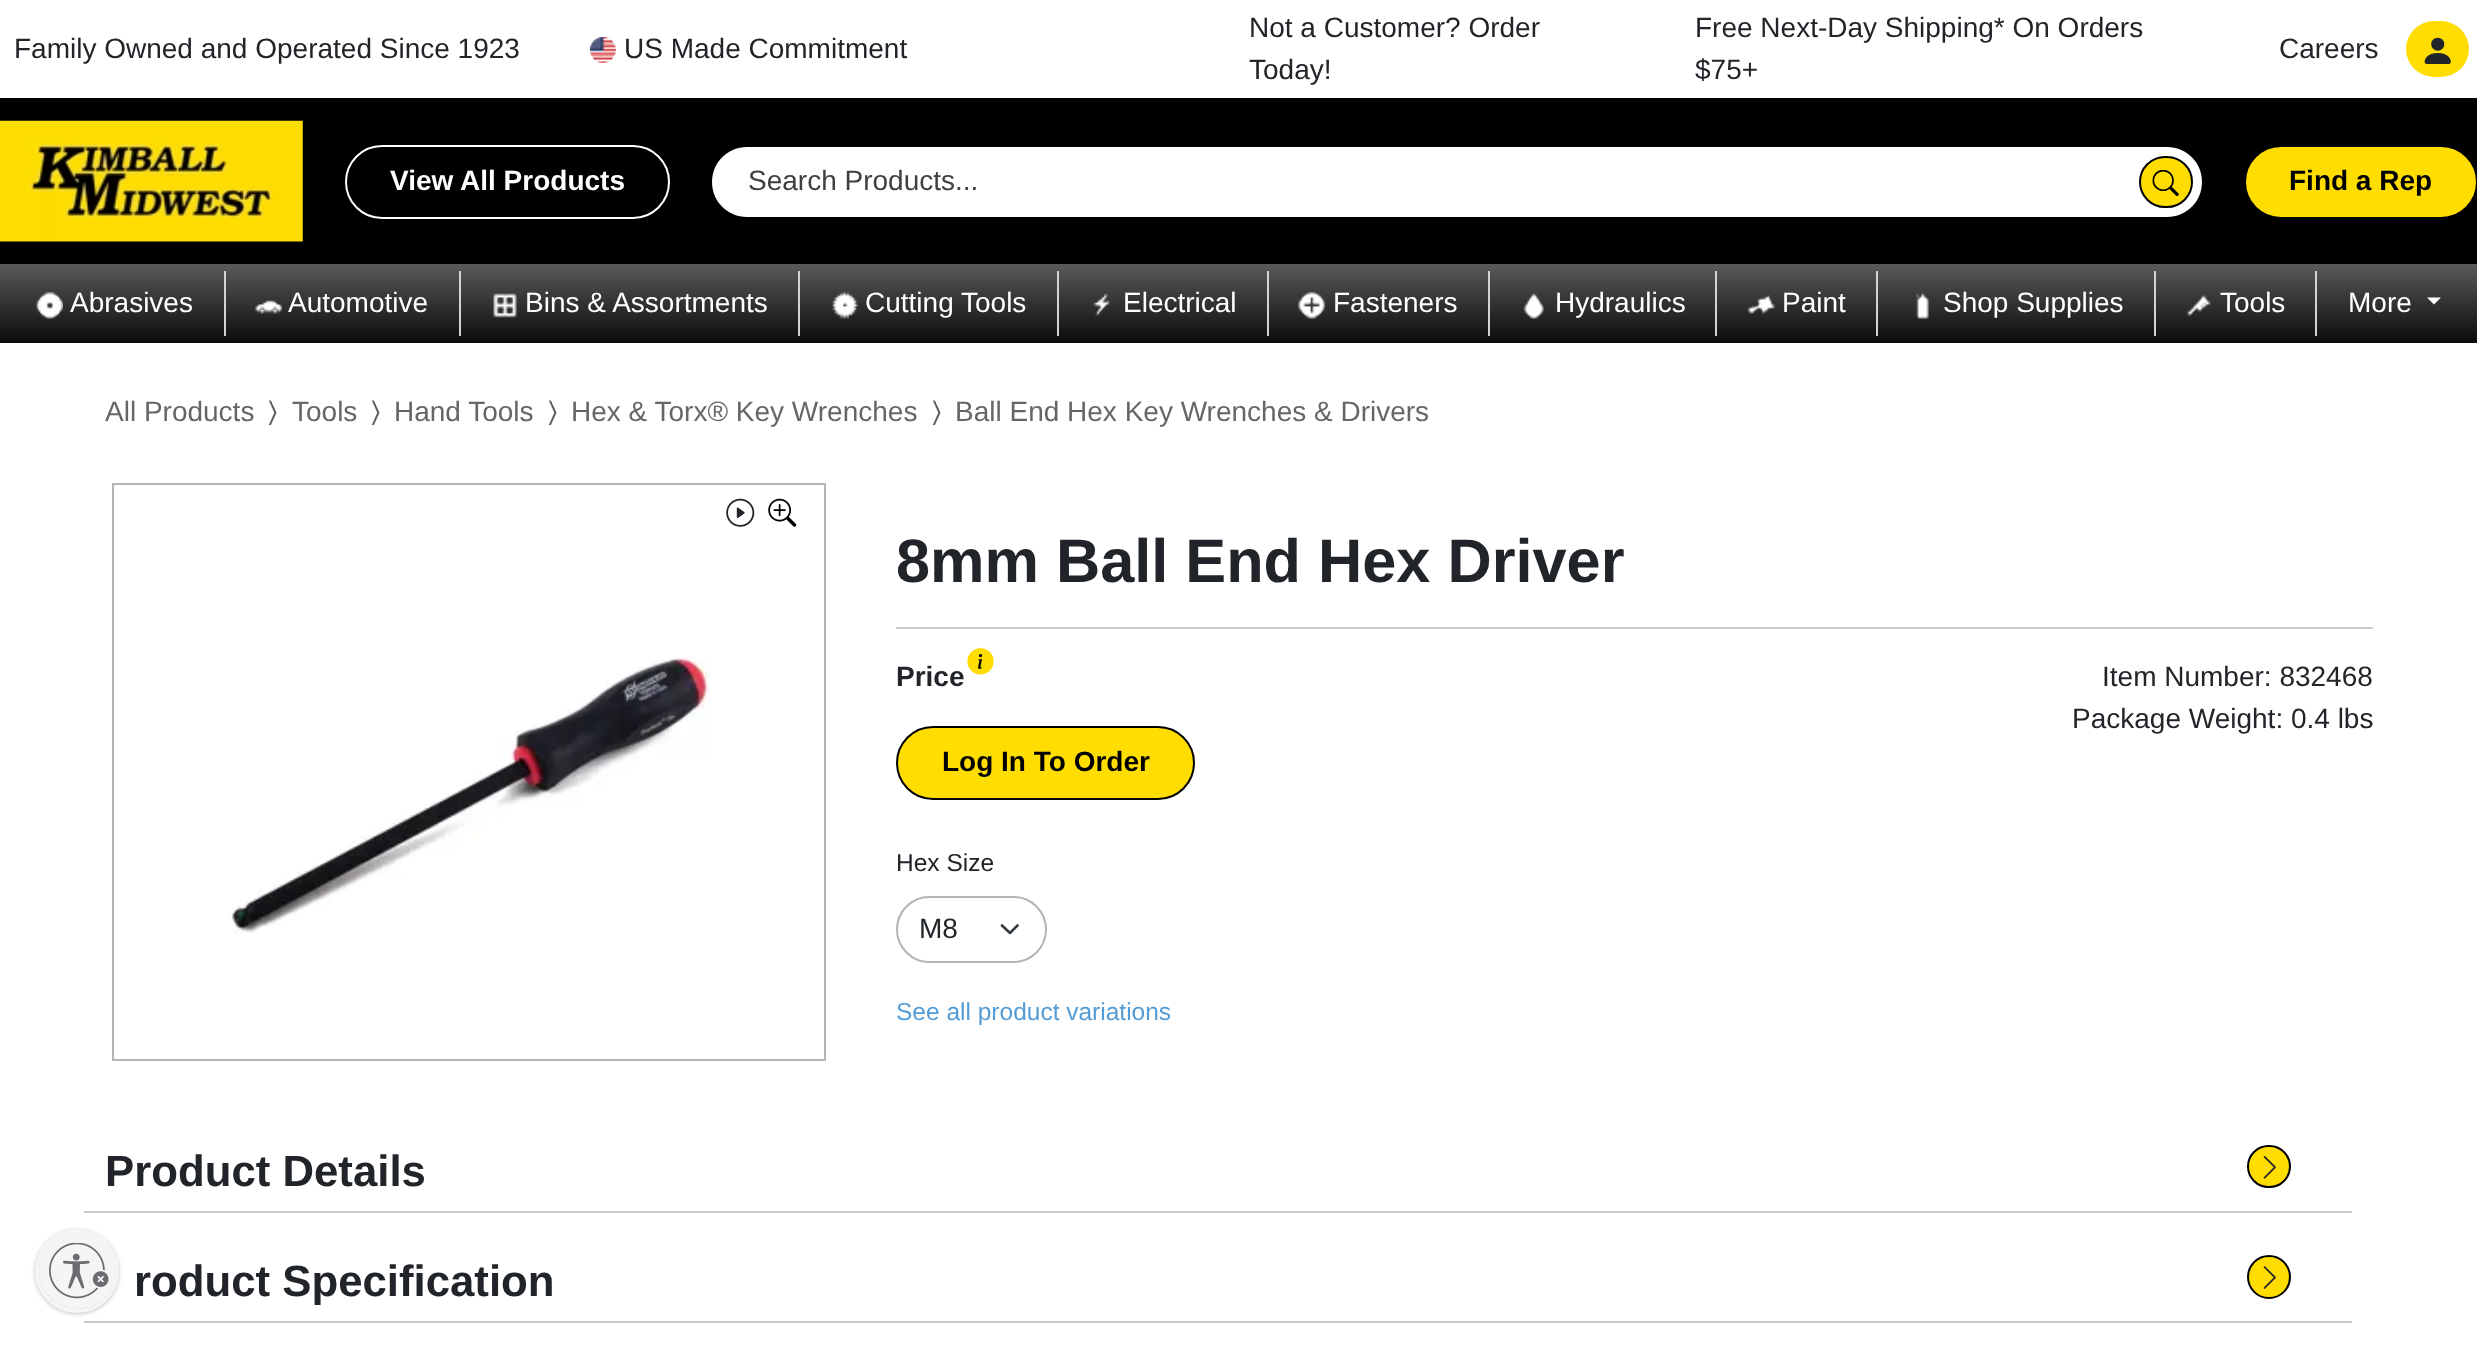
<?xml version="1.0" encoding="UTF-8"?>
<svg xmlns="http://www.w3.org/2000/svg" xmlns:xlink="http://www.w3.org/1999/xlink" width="2477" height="1347">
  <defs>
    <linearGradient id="g1" gradientUnits="userSpaceOnUse" x1="1239" y1="264" x2="1239" y2="343"><stop offset="0" stop-color="#595959" /><stop offset="1" stop-color="#0b0b0b" /></linearGradient>
    <clipPath id="clip1"><rect x="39" y="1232" width="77" height="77" rx="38.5" /></clipPath>
  </defs>
  <rect width="100%" height="100%" fill="#ffffff" />
  <image x="589" y="36" width="27" height="27" xlink:href="image1.png" />
  <rect x="2406" y="21" width="63" height="56" rx="28" fill="#ffdd00" />
  <image x="2424" y="37" width="27" height="27" xlink:href="image2.png" />
  <rect y="98" width="2477" height="166" fill="#000000" />
  <image x="0" y="120" width="303" height="122" xlink:href="image3.png" />
  <rect x="346" y="146" width="323" height="72" rx="36" fill="none" stroke="#ffffff" stroke-width="2" />
  <path d="M 2130 147 h 37 c 19.5 0 35 15.5 35 35 c 0 19.5 -15.5 35 -35 35 h -37 z" fill="#ffffff" />
  <path d="M 747 147 h 1385 v 70 h -1385 c -19.5 0 -35 -15.5 -35 -35 c 0 -19.5 15.5 -35 35 -35 z" fill="#ffffff" />
  <rect x="2140" y="157" width="52" height="50" rx="25" fill="#ffdd00" stroke="#000000" stroke-width="2" />
  <image x="2152" y="170" width="27" height="26" xlink:href="image4.png" />
  <rect x="2245" y="146" width="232" height="72" rx="36" fill="#ffdd00" stroke="#000000" stroke-width="2" />
  <rect y="264" width="2477" height="79" fill="url(#g1)" />
  <image x="36" y="292" width="27" height="27" xlink:href="image5.png" />
  <rect x="224" y="271" width="2" height="65" fill="#d1d3d4" />
  <image x="255" y="300" width="27" height="14" xlink:href="image6.png" />
  <rect x="459" y="271" width="2" height="65" fill="#d1d3d4" />
  <image x="493" y="293" width="24" height="25" xlink:href="image7.png" />
  <rect x="798" y="271" width="2" height="65" fill="#d1d3d4" />
  <image x="832" y="292" width="26" height="27" xlink:href="image8.png" />
  <rect x="1057" y="271" width="2" height="65" fill="#d1d3d4" />
  <image x="1093" y="293" width="17" height="23" xlink:href="image9.png" />
  <rect x="1267" y="271" width="2" height="65" fill="#d1d3d4" />
  <image x="1298" y="292" width="27" height="27" xlink:href="image10.png" />
  <rect x="1488" y="271" width="2" height="65" fill="#d1d3d4" />
  <image x="1523" y="293" width="21" height="26" xlink:href="image11.png" />
  <rect x="1715" y="271" width="2" height="65" fill="#d1d3d4" />
  <image x="1748" y="295" width="27" height="19" xlink:href="image12.png" />
  <rect x="1876" y="271" width="2" height="65" fill="#d1d3d4" />
  <image x="1916" y="293" width="13" height="26" xlink:href="image13.png" />
  <rect x="2154" y="271" width="2" height="65" fill="#d1d3d4" />
  <image x="2187" y="295" width="24" height="21" xlink:href="image14.png" />
  <rect x="2315" y="271" width="2" height="65" fill="#d1d3d4" />
  <path d="M 2427 297.5 h 14 l -7 7 z" fill="#ffffff" />
  <rect x="113" y="484" width="712" height="576" fill="none" stroke="#b3b4b3" stroke-width="2" />
  <image x="726" y="498" width="29" height="29" xlink:href="image15.png" />
  <image x="768" y="498" width="29" height="29" xlink:href="image16.png" />
  <image x="229" y="657" width="482" height="277" xlink:href="image17.png" />
  <rect x="896" y="627" width="1477" height="2" fill="#c8c9ca" />
  <rect x="978" y="651" width="5" height="18" fill="#000000" />
  <image x="967" y="648" width="27" height="27" xlink:href="image18.png" />
  <rect x="897" y="727" width="297" height="72" rx="36" fill="#ffdd00" stroke="#000000" stroke-width="2" />
  <path d="M 1002 925.5 l 8 7.5 l 7.5 -7.5" fill="none" stroke="#343a40" stroke-width="2.6" stroke-linecap="round" stroke-linejoin="round" />
  <rect x="897" y="897" width="149" height="65" rx="32.5" fill="none" stroke="#b3b4b3" stroke-width="2" />
  <rect x="2248" y="1146" width="42" height="41" rx="20.5" fill="#ffdd00" stroke="#000000" stroke-width="2" />
  <image x="2263" y="1155" width="13" height="24" xlink:href="image19.png" />
  <rect x="84" y="1211" width="2268" height="2" fill="#c8c9ca" />
  <circle cx="2269" cy="1277" r="21" fill="#ffdd00" stroke="#000000" stroke-width="2" />
  <image x="2263" y="1266" width="13" height="23" xlink:href="image20.png" />
  <rect x="84" y="1321" width="2268" height="2" fill="#c8c9ca" />
  <rect x="35" y="1230" width="84" height="84" rx="42" fill="#000000" fill-opacity="0.24" filter="blur(2px)" />
  <circle cx="77" cy="1271" r="40" fill="#ebebf0" stroke="#f5f5f5" stroke-width="4" />
  <g clip-path="url(#clip1)">
    <rect x="39" y="1234" width="77" height="77" rx="38.5" fill="#000000" fill-opacity="0.24" filter="blur(2px)" />
  </g>
  <circle cx="77.5" cy="1270.5" r="38.5" fill="#f5f5f5" />
  <image x="49" y="1243" width="60" height="56" xlink:href="image21.png" />
  <text x="14" y="58" style="font-family: Liberation Sans; font-size: 28px; fill: #212529">Family Owned and Operated Since 1923</text>
  <text x="624" y="58" style="font-family: Liberation Sans; font-size: 28px; fill: #212529">US Made Commitment</text>
  <text x="1249" y="37" style="font-family: Liberation Sans; font-size: 28px; fill: #212529">Not a Customer? Order</text>
  <text x="1249" y="79" style="font-family: Liberation Sans; font-size: 28px; fill: #212529">Today!</text>
  <text x="1695" y="37" style="font-family: Liberation Sans; font-size: 28px; fill: #212529">Free Next-Day Shipping* On Orders</text>
  <text x="1695" y="79" style="font-family: Liberation Sans; font-size: 28px; fill: #212529">$75+</text>
  <text x="2279" y="58" style="font-family: Liberation Sans; font-size: 28px; fill: #212529">Careers</text>
  <text x="390" y="190" style="font-family: Liberation Sans; font-size: 28px; font-weight: bold; fill: #ffffff">View All Products</text>
  <text x="748" y="190" style="font-family: Liberation Sans; font-size: 28px; fill: #404041">Search Products...</text>
  <text x="2289" y="190" style="font-family: Liberation Sans; font-size: 28px; font-weight: bold; fill: #000000">Find a Rep</text>
  <text x="70" y="312" style="font-family: Liberation Sans; font-size: 28px; fill: #ffffff">Abrasives</text>
  <text x="288" y="312" style="font-family: Liberation Sans; font-size: 28px; fill: #ffffff">Automotive</text>
  <text x="525" y="312" style="font-family: Liberation Sans; font-size: 28px; fill: #ffffff">Bins &amp; Assortments</text>
  <text x="865" y="312" style="font-family: Liberation Sans; font-size: 28px; fill: #ffffff">Cutting Tools</text>
  <text x="1123" y="312" style="font-family: Liberation Sans; font-size: 28px; fill: #ffffff">Electrical</text>
  <text x="1333" y="312" style="font-family: Liberation Sans; font-size: 28px; fill: #ffffff">Fasteners</text>
  <text x="1555" y="312" style="font-family: Liberation Sans; font-size: 28px; fill: #ffffff">Hydraulics</text>
  <text x="1782" y="312" style="font-family: Liberation Sans; font-size: 28px; fill: #ffffff">Paint</text>
  <text x="1943" y="312" style="font-family: Liberation Sans; font-size: 28px; fill: #ffffff">Shop Supplies</text>
  <text x="2220" y="312" style="font-family: Liberation Sans; font-size: 28px; fill: #ffffff">Tools</text>
  <text x="2348" y="312" style="font-family: Liberation Sans; font-size: 28px; fill: #ffffff">More</text>
  <text x="105" y="421" style="font-family: Liberation Sans; font-size: 28px; fill: #666666">All Products</text>
  <text x="268" y="421" style="font-family: FreeSans; font-size: 28px; fill: #595c5f">〉</text>
  <text x="292" y="421" style="font-family: Liberation Sans; font-size: 28px; fill: #666666">Tools</text>
  <text x="371" y="421" style="font-family: FreeSans; font-size: 28px; fill: #595c5f">〉</text>
  <text x="394" y="421" style="font-family: Liberation Sans; font-size: 28px; fill: #666666">Hand Tools</text>
  <text x="548" y="421" style="font-family: FreeSans; font-size: 28px; fill: #595c5f">〉</text>
  <text x="571" y="421" style="font-family: Liberation Sans; font-size: 28px; fill: #666666">Hex &amp; Torx® Key Wrenches</text>
  <text x="932" y="421" style="font-family: FreeSans; font-size: 28px; fill: #595c5f">〉</text>
  <text x="955" y="421" style="font-family: Liberation Sans; font-size: 28px; fill: #666666">Ball End Hex Key Wrenches &amp; Drivers</text>
  <text x="896" y="582" style="font-family: Liberation Sans; font-size: 61.25px; font-weight: bold; fill: #212529">8mm Ball End Hex Driver</text>
  <text x="896" y="686" style="font-family: Liberation Sans; font-size: 28px; font-weight: bold; fill: #212529">Price</text>
  <text x="942" y="771" style="font-family: Liberation Sans; font-size: 28px; font-weight: bold; fill: #000000">Log In To Order</text>
  <text x="2102" y="686" style="font-family: Liberation Sans; font-size: 28px; fill: #212529">Item Number: 832468</text>
  <text x="2072" y="728" style="font-family: Liberation Sans; font-size: 28px; fill: #212529">Package Weight: 0.4 lbs</text>
  <text x="896" y="871" style="font-family: Liberation Sans; font-size: 24.5px; fill: #212529">Hex Size</text>
  <text x="919" y="938" style="font-family: Liberation Sans; font-size: 28px; fill: #212529">M8</text>
  <text x="896" y="1020" style="font-family: Liberation Sans; font-size: 24.5px; fill: #549cd5">See all product variations</text>
  <text x="105" y="1186" style="font-family: Liberation Sans; font-size: 43.75px; font-weight: bold; fill: #212529">Product Details</text>
  <text x="134" y="1296" style="font-family: Liberation Sans; font-size: 43.75px; font-weight: bold; fill: #212529">roduct Specification</text>
</svg>
